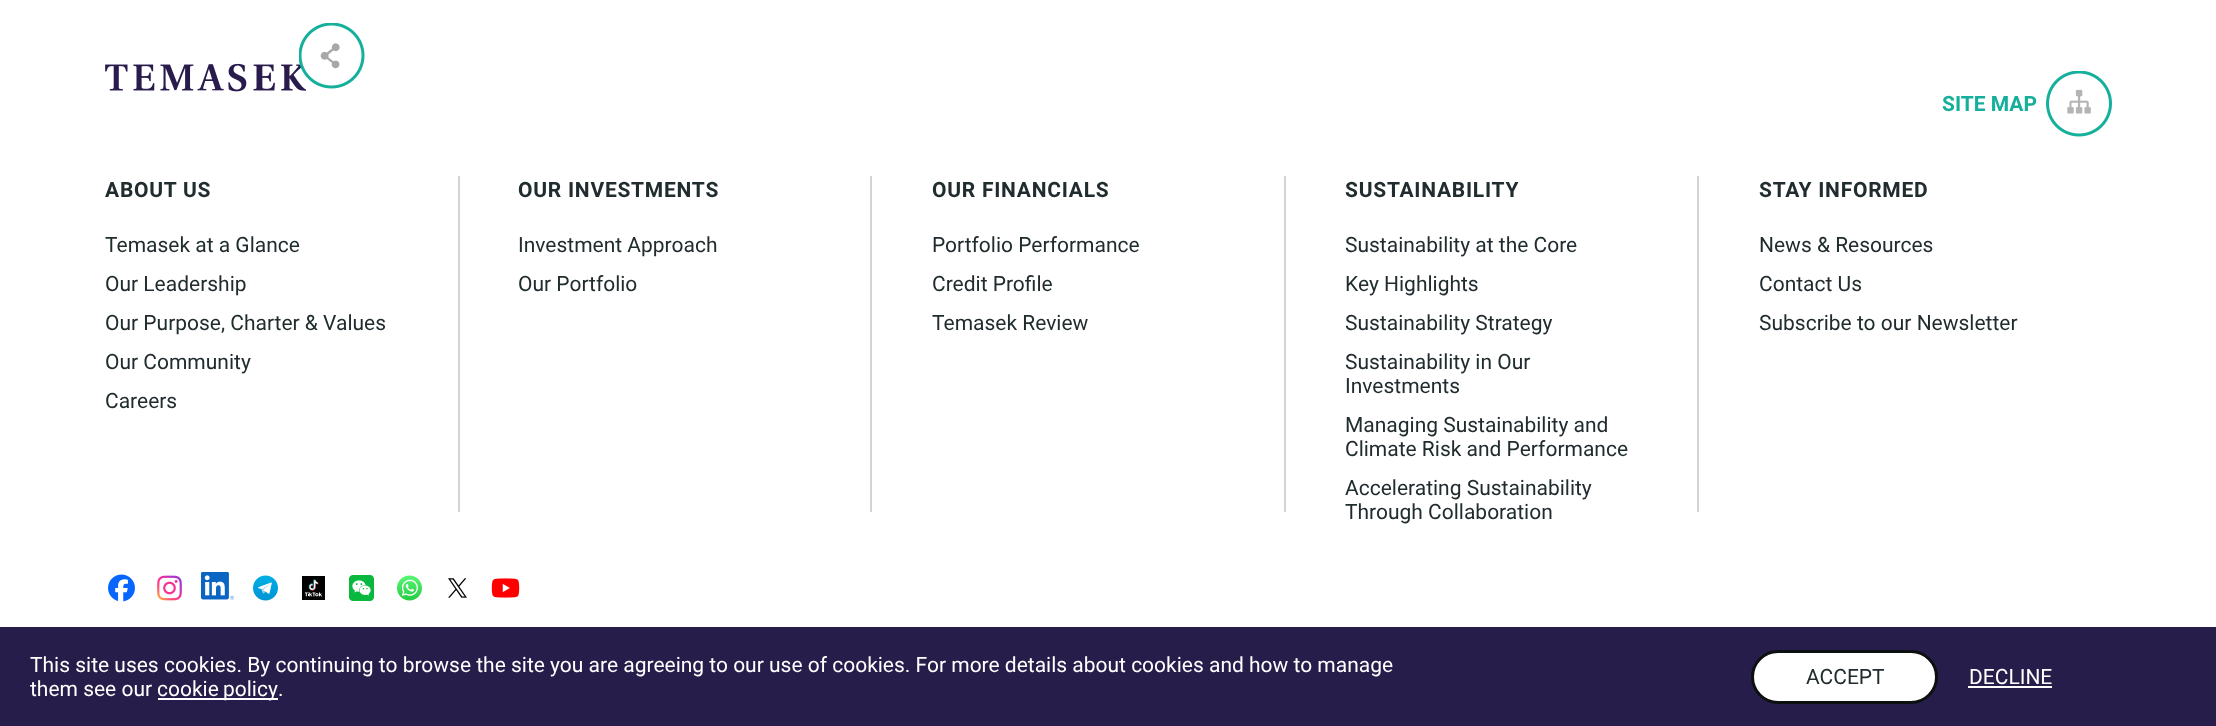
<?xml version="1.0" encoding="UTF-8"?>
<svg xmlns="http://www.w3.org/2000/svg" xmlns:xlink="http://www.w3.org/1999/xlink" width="2216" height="726">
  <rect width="100%" height="100%" fill="#ffffff" />
  <image x="105" y="63" width="201" height="29" xlink:href="image2.png" />
  <image x="299" y="23" width="66" height="66" xlink:href="image1.png" />
  <image x="2046" y="71" width="66" height="66" xlink:href="image3.png" />
  <rect x="458" y="176" width="2" height="336" fill="#d5d4d3" />
  <rect x="870" y="176" width="2" height="336" fill="#d5d4d3" />
  <rect x="1284" y="176" width="2" height="336" fill="#d5d4d3" />
  <rect x="1697" y="176" width="2" height="336" fill="#d5d4d3" />
  <image x="108" y="574" width="27" height="28" xlink:href="image4.png" />
  <image x="157" y="575" width="25" height="26" xlink:href="image5.png" />
  <image x="201" y="572" width="33" height="28" xlink:href="image6.png" />
  <image x="253" y="575" width="25" height="26" xlink:href="image7.png" />
  <image x="302" y="576" width="23" height="24" xlink:href="image8.png" />
  <image x="349" y="575" width="25" height="26" xlink:href="image9.png" />
  <image x="397" y="575" width="25" height="26" xlink:href="image10.png" />
  <image x="448" y="578" width="19" height="20" xlink:href="image11.png" />
  <image x="491" y="578" width="29" height="20" xlink:href="image12.png" />
  <rect y="627" width="2216" height="99" fill="#271d4a" />
  <rect x="158" y="698" width="120" height="2" fill="#ffffff" />
  <rect x="1752.5" y="651.5" width="184" height="51" rx="25.5" fill="#ffffff" stroke="#0c1011" stroke-width="3" />
  <rect x="1968" y="686" width="84" height="2" fill="#ffffff" />
  <text x="1942" y="111" style="font-family: Roboto; font-size: 21px; font-weight: bold; fill: #16af9b">SITE MAP</text>
  <text x="105" y="197" style="font-family: Roboto; font-size: 21px; font-weight: bold; letter-spacing: 0.75px; fill: #212c2f">ABOUT US</text>
  <text x="105" y="252" style="font-family: Roboto; font-size: 21px; fill: #212c2f">Temasek at a Glance</text>
  <text x="105" y="291" style="font-family: Roboto; font-size: 21px; fill: #212c2f">Our Leadership</text>
  <text x="105" y="330" style="font-family: Roboto; font-size: 21px; fill: #212c2f">Our Purpose, Charter &amp; Values</text>
  <text x="105" y="369" style="font-family: Roboto; font-size: 21px; fill: #212c2f">Our Community</text>
  <text x="105" y="408" style="font-family: Roboto; font-size: 21px; fill: #212c2f">Careers</text>
  <text x="518" y="197" style="font-family: Roboto; font-size: 21px; font-weight: bold; letter-spacing: 0.75px; fill: #212c2f">OUR INVESTMENTS</text>
  <text x="518" y="252" style="font-family: Roboto; font-size: 21px; fill: #212c2f">Investment Approach</text>
  <text x="518" y="291" style="font-family: Roboto; font-size: 21px; fill: #212c2f">Our Portfolio</text>
  <text x="932" y="197" style="font-family: Roboto; font-size: 21px; font-weight: bold; letter-spacing: 0.75px; fill: #212c2f">OUR FINANCIALS</text>
  <text x="932" y="252" style="font-family: Roboto; font-size: 21px; fill: #212c2f">Portfolio Performance</text>
  <text x="932" y="291" style="font-family: Roboto; font-size: 21px; fill: #212c2f">Credit Profile</text>
  <text x="932" y="330" style="font-family: Roboto; font-size: 21px; fill: #212c2f">Temasek Review</text>
  <text x="1345" y="197" style="font-family: Roboto; font-size: 21px; font-weight: bold; letter-spacing: 0.75px; fill: #212c2f">SUSTAINABILITY</text>
  <text x="1345" y="252" style="font-family: Roboto; font-size: 21px; fill: #212c2f">Sustainability at the Core</text>
  <text x="1345" y="291" style="font-family: Roboto; font-size: 21px; fill: #212c2f">Key Highlights</text>
  <text x="1345" y="330" style="font-family: Roboto; font-size: 21px; fill: #212c2f">Sustainability Strategy</text>
  <text x="1345" y="369" style="font-family: Roboto; font-size: 21px; fill: #212c2f">Sustainability in Our</text>
  <text x="1345" y="393" style="font-family: Roboto; font-size: 21px; fill: #212c2f">Investments</text>
  <text x="1345" y="432" style="font-family: Roboto; font-size: 21px; fill: #212c2f">Managing Sustainability and</text>
  <text x="1345" y="456" style="font-family: Roboto; font-size: 21px; fill: #212c2f">Climate Risk and Performance</text>
  <text x="1345" y="495" style="font-family: Roboto; font-size: 21px; fill: #212c2f">Accelerating Sustainability</text>
  <text x="1345" y="519" style="font-family: Roboto; font-size: 21px; fill: #212c2f">Through Collaboration</text>
  <text x="1759" y="197" style="font-family: Roboto; font-size: 21px; font-weight: bold; letter-spacing: 0.75px; fill: #212c2f">STAY INFORMED</text>
  <text x="1759" y="252" style="font-family: Roboto; font-size: 21px; fill: #212c2f">News &amp; Resources</text>
  <text x="1759" y="291" style="font-family: Roboto; font-size: 21px; fill: #212c2f">Contact Us</text>
  <text x="1759" y="330" style="font-family: Roboto; font-size: 21px; fill: #212c2f">Subscribe to our Newsletter</text>
  <text x="30" y="672" style="font-family: Roboto; font-size: 21px; fill: #ffffff">This site uses cookies. By continuing to browse the site you are agreeing to our use of cookies. For more details about cookies and how to manage</text>
  <text x="30" y="696" style="font-family: Roboto; font-size: 21px; fill: #ffffff">them see our</text>
  <text x="157" y="696" word-spacing="-1" style="font-family: Roboto; font-size: 21px; fill: #ffffff">cookie policy</text>
  <text x="278" y="696" style="font-family: Roboto; font-size: 21px; fill: #ffffff">.</text>
  <text x="1806" y="684" style="font-family: Roboto; font-size: 21px; fill: #212c2f">ACCEPT</text>
  <text x="1969" y="684" style="font-family: Roboto; font-size: 21px; fill: #ffffff">DECLINE</text>
</svg>
